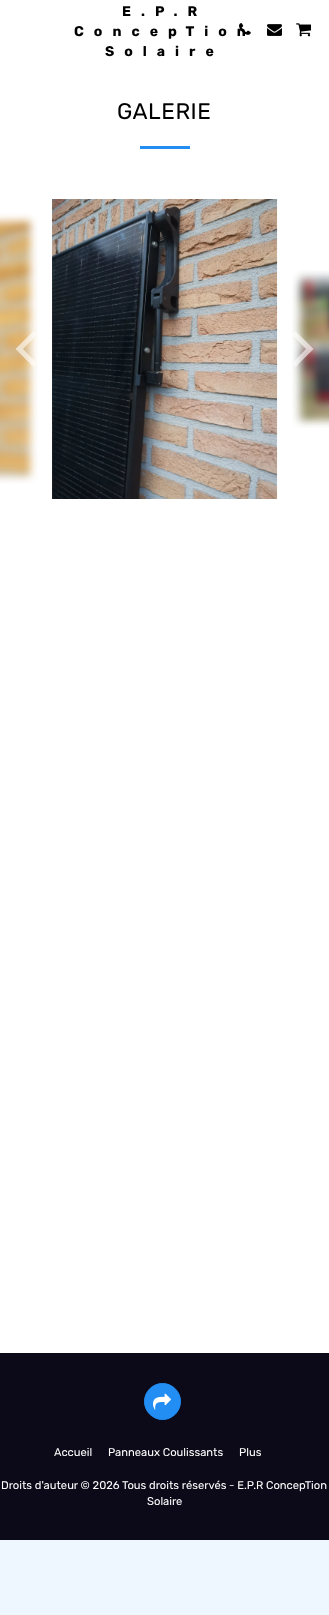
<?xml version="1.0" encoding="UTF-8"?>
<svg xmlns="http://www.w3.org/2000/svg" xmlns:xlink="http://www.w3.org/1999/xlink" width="329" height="1615">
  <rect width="100%" height="100%" fill="#eef7ff" />
  <rect width="329" height="1353" fill="#ffffff" />
  <image x="267" y="24" width="15" height="12" xlink:href="image2.png" />
  <image x="296" y="23" width="15" height="14" xlink:href="image3.png" />
  <rect x="140" y="146" width="50" height="3" fill="#228ef4" />
  <image x="0" y="213" width="38" height="271" xlink:href="image4.png" />
  <image x="52" y="199" width="226" height="300" xlink:href="image5.png" />
  <image x="292" y="270" width="37" height="158" xlink:href="image6.png" />
  <path d="M 15.5 349 l 18 18 l 3.5 -3.5 l -14 -14.5 l 14 -14.5 l -3.5 -3.5 z" fill="#ffffff" fill-opacity="0.6" />
  <path d="M 313.5 349 l -18 -18 l -3.5 3.5 l 14 14.5 l -14 14.5 l 3.5 3.5 z" fill="#ffffff" fill-opacity="0.6" />
  <rect y="1353" width="329" height="187" fill="#0c0a18" />
  <circle cx="162.5" cy="1401.5" r="18" fill="#228ef4" stroke="#228ef4" />
  <image x="153" y="1393" width="18" height="17" xlink:href="image7.png" />
  <text x="122" y="16" style="font-family: Rubik; font-size: 14px; font-weight: bold; letter-spacing: 10px; fill: #000000">E.P.R</text>
  <text x="74" y="36" style="font-family: Rubik; font-size: 14px; font-weight: bold; letter-spacing: 10px; fill: #000000">ConcepTion</text>
  <text x="105" y="56" style="font-family: Rubik; font-size: 14px; font-weight: bold; letter-spacing: 10px; fill: #000000">Solaire</text>
  <image x="239" y="23" width="12" height="12" xlink:href="image1.png" />
  <text x="117" y="119" style="font-family: Rubik; font-size: 22.5px; letter-spacing: 0.5px; fill: #000000">GALERIE</text>
  <text x="54" y="1456" style="font-family: Rubik; font-size: 11.2px; fill: #ffffff">Accueil</text>
  <text x="108" y="1456" style="font-family: Rubik; font-size: 11.2px; fill: #ffffff">Panneaux Coulissants</text>
  <text x="239" y="1456" style="font-family: Rubik; font-size: 11.2px; fill: #ffffff">Plus</text>
  <text x="1" y="1489" style="font-family: Rubik; font-size: 11.2px; fill: #ffffff">Droits d'auteur © 2026 Tous droits réservés - E.P.R ConcepTion</text>
  <text x="147" y="1505" style="font-family: Rubik; font-size: 11.2px; fill: #ffffff">Solaire</text>
</svg>
